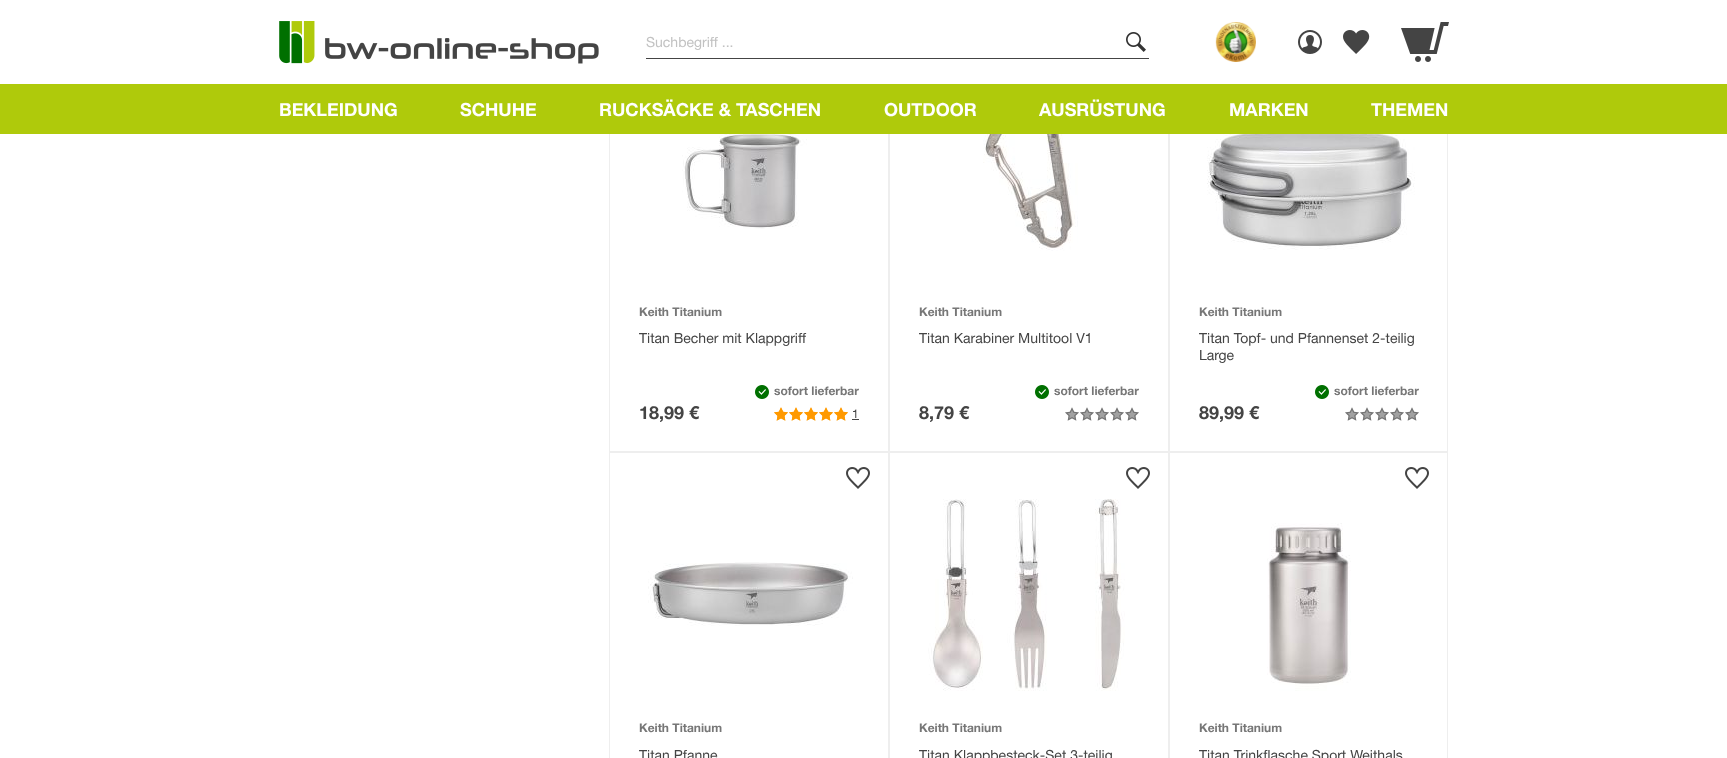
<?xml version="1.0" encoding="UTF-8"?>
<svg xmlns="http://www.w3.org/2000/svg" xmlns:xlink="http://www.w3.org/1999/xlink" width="1727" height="758">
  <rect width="100%" height="100%" fill="#ffffff" />
  <rect x="609.5" y="36.5" width="279" height="415" fill="none" stroke="#eeeeee" />
  <rect x="889.5" y="36.5" width="279" height="415" fill="none" stroke="#eeeeee" />
  <rect x="1169.5" y="36.5" width="278" height="415" fill="none" stroke="#eeeeee" />
  <rect x="609" y="36" width="839" height="48" fill="#ffffff" />
  <image x="279" y="21" width="320" height="43" xlink:href="image1.png" />
  <rect x="646" y="58" width="503" height="1" fill="#444444" />
  <image x="1126" y="32" width="20" height="20" xlink:href="image2.png" />
  <image x="1215" y="22" width="41" height="40" xlink:href="image3.png" />
  <image x="1298" y="30" width="24" height="24" xlink:href="image4.png" />
  <image x="1343" y="30" width="27" height="24" xlink:href="image5.png" />
  <image x="1401" y="22" width="48" height="40" xlink:href="image6.png" />
  <rect y="84" width="1727" height="50" fill="#afca0b" />
  <image x="682" y="134" width="125" height="95" xlink:href="image7.png" />
  <image x="755" y="385" width="14" height="14" xlink:href="image8.png" />
  <image x="774" y="407" width="74" height="14" xlink:href="image9.png" />
  <image x="774" y="407" width="74" height="14" xlink:href="image10.png" />
  <rect x="852" y="419" width="7" height="1" fill="#444444" />
  <image x="983" y="134" width="95" height="117" xlink:href="image11.png" />
  <image x="1035" y="385" width="14" height="14" xlink:href="image8.png" />
  <image x="1065" y="407" width="74" height="14" xlink:href="image12.png" />
  <image x="1065" y="407" width="74" height="14" xlink:href="image13.png" />
  <image x="1207" y="134" width="208" height="116" xlink:href="image14.png" />
  <image x="1315" y="385" width="14" height="14" xlink:href="image8.png" />
  <image x="1345" y="407" width="74" height="14" xlink:href="image12.png" />
  <image x="1345" y="407" width="74" height="14" xlink:href="image13.png" />
  <rect x="609.5" y="452.5" width="279" height="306" fill="none" stroke="#eeeeee" />
  <image x="846" y="467" width="24" height="22" xlink:href="image15.png" />
  <image x="648" y="562" width="205" height="64" xlink:href="image16.png" />
  <rect x="889.5" y="452.5" width="279" height="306" fill="none" stroke="#eeeeee" />
  <image x="1126" y="467" width="24" height="22" xlink:href="image15.png" />
  <image x="928" y="499" width="197" height="192" xlink:href="image17.png" />
  <rect x="1169.5" y="452.5" width="278" height="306" fill="none" stroke="#eeeeee" />
  <image x="1405" y="467" width="24" height="22" xlink:href="image15.png" />
  <image x="1267" y="523" width="84" height="168" xlink:href="image18.png" />
  <text x="646" y="47" style="font-family: Helvetica Neue; font-size: 14px; fill: #c2c2c2">Suchbegriff ...</text>
  <text x="279" y="116" style="font-family: Helvetica Neue; font-size: 18px; font-weight: bold; fill: #ffffff">BEKLEIDUNG</text>
  <text x="460" y="116" style="font-family: Helvetica Neue; font-size: 18px; font-weight: bold; fill: #ffffff">SCHUHE</text>
  <text x="599" y="116" style="font-family: Helvetica Neue; font-size: 18px; font-weight: bold; fill: #ffffff">RUCKSÄCKE &amp; TASCHEN</text>
  <text x="884" y="116" style="font-family: Helvetica Neue; font-size: 18px; font-weight: bold; fill: #ffffff">OUTDOOR</text>
  <text x="1039" y="116" style="font-family: Helvetica Neue; font-size: 18px; font-weight: bold; fill: #ffffff">AUSRÜSTUNG</text>
  <text x="1229" y="116" style="font-family: Helvetica Neue; font-size: 18px; font-weight: bold; fill: #ffffff">MARKEN</text>
  <text x="1371" y="116" style="font-family: Helvetica Neue; font-size: 18px; font-weight: bold; fill: #ffffff">THEMEN</text>
  <text x="639" y="316" style="font-family: Helvetica Neue; font-size: 12px; font-weight: bold; fill: #777777">Keith Titanium</text>
  <text x="639" y="343" style="font-family: Helvetica Neue; font-size: 14px; fill: #444444">Titan Becher mit Klappgriff</text>
  <text x="639" y="419" style="font-family: Helvetica Neue; font-size: 18px; font-weight: bold; fill: #444444">18,99 €</text>
  <text x="774" y="395" style="font-family: Helvetica Neue; font-size: 12px; font-weight: bold; fill: #777777">sofort lieferbar</text>
  <text x="852" y="418" style="font-family: Helvetica Neue; font-size: 12px; fill: #444444">1</text>
  <text x="919" y="316" style="font-family: Helvetica Neue; font-size: 12px; font-weight: bold; fill: #777777">Keith Titanium</text>
  <text x="919" y="343" style="font-family: Helvetica Neue; font-size: 14px; fill: #444444">Titan Karabiner Multitool V1</text>
  <text x="1054" y="395" style="font-family: Helvetica Neue; font-size: 12px; font-weight: bold; fill: #777777">sofort lieferbar</text>
  <text x="919" y="419" style="font-family: Helvetica Neue; font-size: 18px; font-weight: bold; fill: #444444">8,79 €</text>
  <text x="1199" y="316" style="font-family: Helvetica Neue; font-size: 12px; font-weight: bold; fill: #777777">Keith Titanium</text>
  <text x="1199" y="343" style="font-family: Helvetica Neue; font-size: 14px; fill: #444444">Titan Topf- und Pfannenset 2-teilig</text>
  <text x="1199" y="360" style="font-family: Helvetica Neue; font-size: 14px; fill: #444444">Large</text>
  <text x="1334" y="395" style="font-family: Helvetica Neue; font-size: 12px; font-weight: bold; fill: #777777">sofort lieferbar</text>
  <text x="1199" y="419" style="font-family: Helvetica Neue; font-size: 18px; font-weight: bold; fill: #444444">89,99 €</text>
  <text x="639" y="732" style="font-family: Helvetica Neue; font-size: 12px; font-weight: bold; fill: #777777">Keith Titanium</text>
  <text x="639" y="760" style="font-family: Helvetica Neue; font-size: 14px; fill: #444444">Titan Pfanne</text>
  <text x="919" y="732" style="font-family: Helvetica Neue; font-size: 12px; font-weight: bold; fill: #777777">Keith Titanium</text>
  <text x="919" y="760" style="font-family: Helvetica Neue; font-size: 14px; fill: #444444">Titan Klappbesteck-Set 3-teilig</text>
  <text x="1199" y="732" style="font-family: Helvetica Neue; font-size: 12px; font-weight: bold; fill: #777777">Keith Titanium</text>
  <text x="1199" y="760" style="font-family: Helvetica Neue; font-size: 14px; fill: #444444">Titan Trinkflasche Sport Weithals</text>
</svg>
